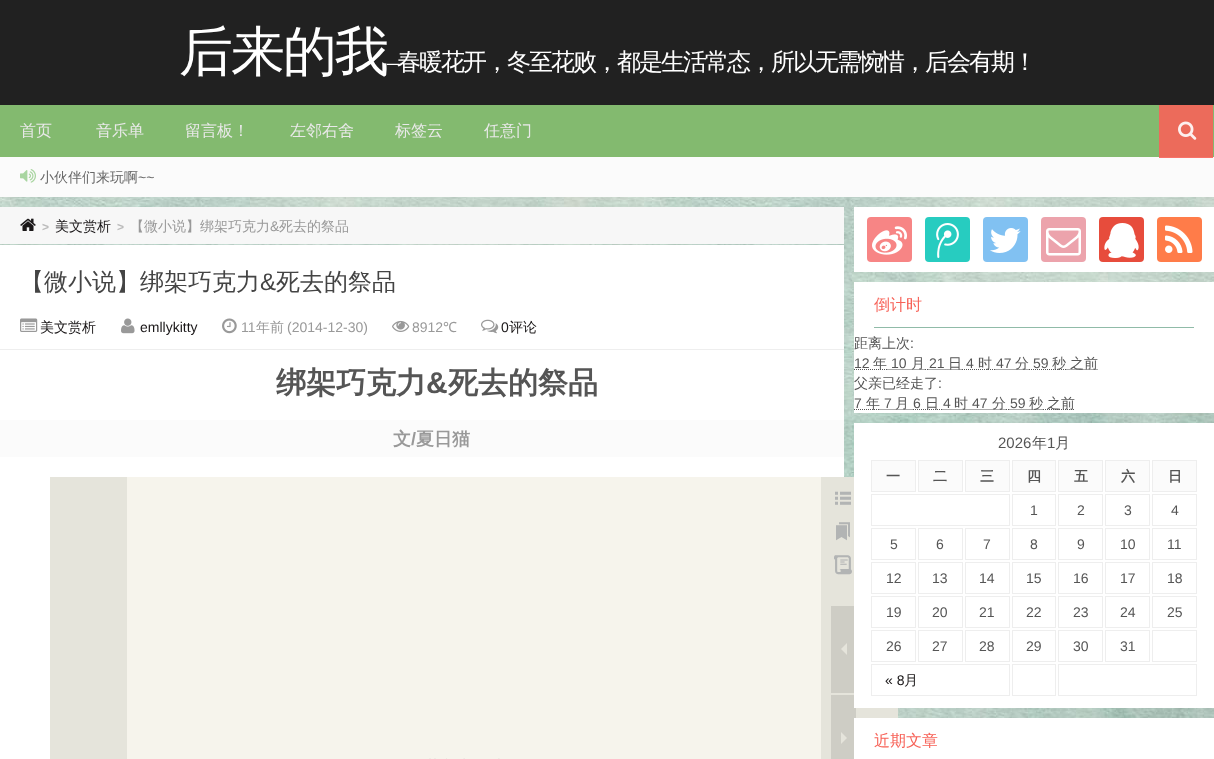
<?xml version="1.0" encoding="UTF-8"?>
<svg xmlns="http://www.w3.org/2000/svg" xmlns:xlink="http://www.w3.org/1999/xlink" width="1214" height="759">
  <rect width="100%" height="100%" fill="#ffffff" />
  <image x="0" y="197" width="1214" height="521" xlink:href="image1.png" />
  <rect width="1214" height="105" fill="#212121" />
  <rect y="105" width="1214" height="52" fill="#83ba6f" />
  <rect y="157" width="1214" height="40" fill="#fbfbfb" />
  <rect x="1159" y="105" width="54" height="53" fill="#f76359" fill-opacity="0.9" />
  <image x="1178" y="121" width="19" height="19" xlink:href="image2.png" />
  <image x="20" y="169" width="16" height="14" xlink:href="image3.png" />
  <rect y="207" width="844" height="37" fill="#f7f7f7" />
  <image x="20" y="218" width="16" height="13" xlink:href="image4.png" />
  <rect y="245" width="844" height="104" fill="#ffffff" />
  <rect y="349" width="844" height="1" fill="#eeeeee" />
  <image x="20" y="318" width="18" height="14" xlink:href="image5.png" />
  <image x="121" y="318" width="14" height="16" xlink:href="image6.png" />
  <image x="222" y="318" width="15" height="16" xlink:href="image7.png" />
  <image x="392" y="320" width="18" height="12" xlink:href="image8.png" />
  <image x="481" y="319" width="18" height="15" xlink:href="image9.png" />
  <rect y="350" width="844" height="368" fill="#ffffff" />
  <rect y="420" width="844" height="37" fill="#fbfbfb" />
  <image x="50" y="477" width="848" height="282" xlink:href="image10.png" />
  <rect x="854" y="207" width="360" height="65" fill="#ffffff" />
  <rect x="867" y="217" width="45" height="45" rx="4" fill="#f78585" />
  <image x="872" y="226" width="35" height="29" xlink:href="image11.png" />
  <rect x="925" y="217" width="45" height="45" rx="4" fill="#27ccc0" />
  <image x="936" y="223" width="23" height="35" xlink:href="image12.png" />
  <rect x="983" y="217" width="45" height="45" rx="4" fill="#81c1f2" />
  <image x="990" y="228" width="31" height="25" xlink:href="image13.png" />
  <rect x="1041" y="217" width="45" height="45" rx="4" fill="#eca3ac" />
  <image x="1046" y="228" width="35" height="28" xlink:href="image14.png" />
  <rect x="1099" y="217" width="45" height="45" rx="4" fill="#e74c3c" />
  <image x="1104" y="223" width="35" height="35" xlink:href="image15.png" />
  <rect x="1157" y="217" width="45" height="45" rx="4" fill="#ff7c49" />
  <image x="1165" y="225" width="28" height="28" xlink:href="image16.png" />
  <rect x="854" y="282" width="360" height="131" fill="#ffffff" />
  <rect x="874" y="327" width="320" height="1" fill="#90bba8" />
  <path d="M 854 369.5 h 33.5" fill="none" stroke="#555555" stroke-dasharray="1 1" />
  <path d="M 887.5 369.5 h 1 m 1 0 h 1" fill="none" stroke="#555555" />
  <path d="M 891.5 369.5 h 33.5" fill="none" stroke="#555555" stroke-dasharray="1 1" />
  <path d="M 925 369.5 h 1 m 1 0 h 1" fill="none" stroke="#555555" />
  <path d="M 928.5 369.5 h 33.5" fill="none" stroke="#555555" stroke-dasharray="1 1" />
  <path d="M 962 369.5 h 1 m 1 0 h 1" fill="none" stroke="#555555" />
  <path d="M 966 369.5 h 26" fill="none" stroke="#555555" stroke-dasharray="1 1" />
  <path d="M 992 369.5 h 1 m 1 0 h 1" fill="none" stroke="#555555" />
  <path d="M 995.5 369.5 h 33.5" fill="none" stroke="#555555" stroke-dasharray="1 1" />
  <path d="M 1029 369.5 h 1 m 1 0 h 1" fill="none" stroke="#555555" />
  <path d="M 1033 369.5 h 33.5" fill="none" stroke="#555555" stroke-dasharray="1 1" />
  <path d="M 1066.5 369.5 h 1 m 1 0 h 1" fill="none" stroke="#555555" />
  <path d="M 1070.5 369.5 h 28" fill="none" stroke="#555555" stroke-dasharray="1 1" />
  <path d="M 854 409.5 h 25.5" fill="none" stroke="#555555" stroke-dasharray="1 1" />
  <path d="M 879.5 409.5 h 1 m 1 0 h 1" fill="none" stroke="#555555" />
  <path d="M 883.5 409.5 h 26" fill="none" stroke="#555555" stroke-dasharray="1 1" />
  <path d="M 909.5 409.5 h 1 m 1 0 h 1" fill="none" stroke="#555555" />
  <path d="M 913 409.5 h 26" fill="none" stroke="#555555" stroke-dasharray="1 1" />
  <path d="M 939 409.5 h 1 m 1 0 h 1" fill="none" stroke="#555555" />
  <path d="M 942.5 409.5 h 26" fill="none" stroke="#555555" stroke-dasharray="1 1" />
  <path d="M 968.5 409.5 h 1 m 1 0 h 1" fill="none" stroke="#555555" />
  <path d="M 972.5 409.5 h 33.5" fill="none" stroke="#555555" stroke-dasharray="1 1" />
  <path d="M 1006 409.5 h 1 m 1 0 h 1" fill="none" stroke="#555555" />
  <path d="M 1009.5 409.5 h 33.5" fill="none" stroke="#555555" stroke-dasharray="1 1" />
  <path d="M 1043 409.5 h 1 m 1 0 h 1" fill="none" stroke="#555555" />
  <path d="M 1047 409.5 h 28" fill="none" stroke="#555555" stroke-dasharray="1 1" />
  <rect x="854" y="423" width="360" height="285" fill="#ffffff" />
  <rect x="871.5" y="460.5" width="44" height="31" fill="#fbfbfb" stroke="#eeeeee" />
  <rect x="918.5" y="460.5" width="44" height="31" fill="#fbfbfb" stroke="#eeeeee" />
  <rect x="965.5" y="460.5" width="44" height="31" fill="#fbfbfb" stroke="#eeeeee" />
  <rect x="1012.5" y="460.5" width="43" height="31" fill="#fbfbfb" stroke="#eeeeee" />
  <rect x="1058.5" y="460.5" width="44" height="31" fill="#fbfbfb" stroke="#eeeeee" />
  <rect x="1105.5" y="460.5" width="44" height="31" fill="#fbfbfb" stroke="#eeeeee" />
  <rect x="1152.5" y="460.5" width="44" height="31" fill="#fbfbfb" stroke="#eeeeee" />
  <rect x="871.5" y="494.5" width="138" height="31" fill="none" stroke="#eeeeee" />
  <rect x="1012.5" y="494.5" width="43" height="31" fill="none" stroke="#eeeeee" />
  <rect x="1058.5" y="494.5" width="44" height="31" fill="none" stroke="#eeeeee" />
  <rect x="1105.5" y="494.5" width="44" height="31" fill="none" stroke="#eeeeee" />
  <rect x="1152.5" y="494.5" width="44" height="31" fill="none" stroke="#eeeeee" />
  <rect x="871.5" y="528.5" width="44" height="31" fill="none" stroke="#eeeeee" />
  <rect x="918.5" y="528.5" width="44" height="31" fill="none" stroke="#eeeeee" />
  <rect x="965.5" y="528.5" width="44" height="31" fill="none" stroke="#eeeeee" />
  <rect x="1012.5" y="528.5" width="43" height="31" fill="none" stroke="#eeeeee" />
  <rect x="1058.5" y="528.5" width="44" height="31" fill="none" stroke="#eeeeee" />
  <rect x="1105.5" y="528.5" width="44" height="31" fill="none" stroke="#eeeeee" />
  <rect x="1152.5" y="528.5" width="44" height="31" fill="none" stroke="#eeeeee" />
  <rect x="871.5" y="562.5" width="44" height="31" fill="none" stroke="#eeeeee" />
  <rect x="918.5" y="562.5" width="44" height="31" fill="none" stroke="#eeeeee" />
  <rect x="965.5" y="562.5" width="44" height="31" fill="none" stroke="#eeeeee" />
  <rect x="1012.5" y="562.5" width="43" height="31" fill="none" stroke="#eeeeee" />
  <rect x="1058.5" y="562.5" width="44" height="31" fill="none" stroke="#eeeeee" />
  <rect x="1105.5" y="562.5" width="44" height="31" fill="none" stroke="#eeeeee" />
  <rect x="1152.5" y="562.5" width="44" height="31" fill="none" stroke="#eeeeee" />
  <rect x="871.5" y="596.5" width="44" height="31" fill="none" stroke="#eeeeee" />
  <rect x="918.5" y="596.5" width="44" height="31" fill="none" stroke="#eeeeee" />
  <rect x="965.5" y="596.5" width="44" height="31" fill="none" stroke="#eeeeee" />
  <rect x="1012.5" y="596.5" width="43" height="31" fill="none" stroke="#eeeeee" />
  <rect x="1058.5" y="596.5" width="44" height="31" fill="none" stroke="#eeeeee" />
  <rect x="1105.5" y="596.5" width="44" height="31" fill="none" stroke="#eeeeee" />
  <rect x="1152.5" y="596.5" width="44" height="31" fill="none" stroke="#eeeeee" />
  <rect x="871.5" y="630.5" width="44" height="31" fill="none" stroke="#eeeeee" />
  <rect x="918.5" y="630.5" width="44" height="31" fill="none" stroke="#eeeeee" />
  <rect x="965.5" y="630.5" width="44" height="31" fill="none" stroke="#eeeeee" />
  <rect x="1012.5" y="630.5" width="43" height="31" fill="none" stroke="#eeeeee" />
  <rect x="1058.5" y="630.5" width="44" height="31" fill="none" stroke="#eeeeee" />
  <rect x="1105.5" y="630.5" width="44" height="31" fill="none" stroke="#eeeeee" />
  <rect x="1152.5" y="630.5" width="44" height="31" fill="none" stroke="#eeeeee" />
  <rect x="871.5" y="664.5" width="138" height="31" fill="none" stroke="#eeeeee" />
  <rect x="1012.5" y="664.5" width="43" height="31" fill="none" stroke="#eeeeee" />
  <rect x="1058.5" y="664.5" width="138" height="31" fill="none" stroke="#eeeeee" />
  <rect x="854" y="718" width="44" height="41" fill="#ffffff" />
  <text x="179" y="70" style="font-family: WenQuanYi Zen Hei; font-size: 54px; font-weight: 500; letter-spacing: -2px; fill: #ffffff">后来的我</text>
  <text x="387" y="70" style="font-family: Liberation Serif; font-size: 24px; letter-spacing: -2px; fill: #ffffff">–</text>
  <text x="397" y="70" style="font-family: WenQuanYi Zen Hei; font-size: 24px; font-weight: 500; letter-spacing: -2px; fill: #ffffff">春暖花开，冬至花败，都是生活常态，所以无需惋惜，后会有期！</text>
  <text x="20" y="136" style="font-family: WenQuanYi Zen Hei; font-size: 16px; font-weight: 500; fill: #e9e9e9">首页</text>
  <text x="96" y="136" style="font-family: WenQuanYi Zen Hei; font-size: 16px; font-weight: 500; fill: #e9e9e9">音乐单</text>
  <text x="185" y="136" style="font-family: WenQuanYi Zen Hei; font-size: 16px; font-weight: 500; fill: #e9e9e9">留言板！</text>
  <text x="290" y="136" style="font-family: WenQuanYi Zen Hei; font-size: 16px; font-weight: 500; fill: #e9e9e9">左邻右舍</text>
  <text x="395" y="136" style="font-family: WenQuanYi Zen Hei; font-size: 16px; font-weight: 500; fill: #e9e9e9">标签云</text>
  <text x="484" y="136" style="font-family: WenQuanYi Zen Hei; font-size: 16px; font-weight: 500; fill: #e9e9e9">任意门</text>
  <text x="40" y="182" style="font-family: WenQuanYi Zen Hei; font-size: 14px; font-weight: 500; fill: #666666">小伙伴们来玩啊</text>
  <text x="138" y="182" style="font-family: Liberation Sans; font-size: 14px; fill: #666666">~~</text>
  <text x="42" y="231" style="font-family: Liberation Sans; font-size: 12px; font-weight: bold; fill: #bbbbbb">&gt;</text>
  <text x="55" y="231" style="font-family: WenQuanYi Zen Hei; font-size: 14px; font-weight: 500; fill: #1a1718">美文赏析</text>
  <text x="117" y="231" style="font-family: Liberation Sans; font-size: 12px; font-weight: bold; fill: #bbbbbb">&gt;</text>
  <text x="130" y="231" style="font-family: WenQuanYi Zen Hei; font-size: 14px; font-weight: 500; fill: #999999">【微小说】绑架巧克力</text>
  <text x="270" y="231" style="font-family: Liberation Sans; font-size: 14px; fill: #999999">&amp;</text>
  <text x="279" y="231" style="font-family: WenQuanYi Zen Hei; font-size: 14px; font-weight: 500; fill: #999999">死去的祭品</text>
  <text x="20" y="290" style="font-family: WenQuanYi Zen Hei; font-size: 24px; font-weight: 500; fill: #444444">【微小说】绑架巧克力</text>
  <text x="260" y="290" style="font-family: Liberation Sans; font-size: 24px; fill: #444444">&amp;</text>
  <text x="276" y="290" style="font-family: WenQuanYi Zen Hei; font-size: 24px; font-weight: 500; fill: #444444">死去的祭品</text>
  <text x="40" y="332" style="font-family: WenQuanYi Zen Hei; font-size: 14px; font-weight: 500; fill: #1a1718">美文赏析</text>
  <text x="140" y="332" style="font-family: Liberation Sans; font-size: 14px; fill: #1a1718">emllykitty</text>
  <text x="241" y="332" style="font-family: Liberation Sans; font-size: 14px; fill: #999999">11</text>
  <text x="256" y="332" style="font-family: WenQuanYi Zen Hei; font-size: 14px; font-weight: 500; fill: #999999">年前</text>
  <text x="287" y="332" style="font-family: Liberation Sans; font-size: 14px; fill: #999999">(2014-12-30)</text>
  <text x="412" y="332" style="font-family: Liberation Sans; font-size: 14px; fill: #999999">8912</text>
  <text x="443" y="332" style="font-family: Noto Sans; font-size: 14px; fill: #999999">℃</text>
  <text x="501" y="332" style="font-family: Liberation Sans; font-size: 14px; fill: #1a1718">0</text>
  <text x="509" y="332" style="font-family: WenQuanYi Zen Hei; font-size: 14px; font-weight: 500; fill: #1a1718">评论</text>
  <text x="276" y="393" style="font-family: WenQuanYi Zen Hei; font-size: 30px; font-weight: bold; fill: #555555">绑架巧克力</text>
  <text x="426" y="393" style="font-family: Liberation Sans; font-size: 30px; font-weight: bold; fill: #555555">&amp;</text>
  <text x="448" y="393" style="font-family: WenQuanYi Zen Hei; font-size: 30px; font-weight: bold; fill: #555555">死去的祭品</text>
  <text x="393" y="445" style="font-family: WenQuanYi Zen Hei; font-size: 18px; font-weight: bold; fill: #999999">文</text>
  <text x="411" y="445" style="font-family: Liberation Sans; font-size: 18px; font-weight: bold; fill: #999999">/</text>
  <text x="416" y="445" style="font-family: WenQuanYi Zen Hei; font-size: 18px; font-weight: bold; fill: #999999">夏日猫</text>
  <text x="874" y="310" style="font-family: WenQuanYi Zen Hei; font-size: 16px; font-weight: 500; fill: #f76359">倒计时</text>
  <text x="854" y="348" style="font-family: WenQuanYi Zen Hei; font-size: 14px; font-weight: 500; fill: #555555">距离上次</text>
  <text x="910" y="348" style="font-family: Liberation Sans; font-size: 14px; fill: #555555">:</text>
  <text x="854" y="368" style="font-family: Liberation Sans; font-size: 14px; fill: #555555">12</text>
  <text x="873" y="368" style="font-family: WenQuanYi Zen Hei; font-size: 14px; font-weight: 500; fill: #555555">年</text>
  <text x="891" y="368" style="font-family: Liberation Sans; font-size: 14px; fill: #555555">10</text>
  <text x="911" y="368" style="font-family: WenQuanYi Zen Hei; font-size: 14px; font-weight: 500; fill: #555555">月</text>
  <text x="929" y="368" style="font-family: Liberation Sans; font-size: 14px; fill: #555555">21</text>
  <text x="948" y="368" style="font-family: WenQuanYi Zen Hei; font-size: 14px; font-weight: 500; fill: #555555">日</text>
  <text x="966" y="368" style="font-family: Liberation Sans; font-size: 14px; fill: #555555">4</text>
  <text x="978" y="368" style="font-family: WenQuanYi Zen Hei; font-size: 14px; font-weight: 500; fill: #555555">时</text>
  <text x="996" y="368" style="font-family: Liberation Sans; font-size: 14px; fill: #555555">47</text>
  <text x="1015" y="368" style="font-family: WenQuanYi Zen Hei; font-size: 14px; font-weight: 500; fill: #555555">分</text>
  <text x="1033" y="368" style="font-family: Liberation Sans; font-size: 14px; fill: #555555">59</text>
  <text x="1052" y="368" style="font-family: WenQuanYi Zen Hei; font-size: 14px; font-weight: 500; fill: #555555">秒</text>
  <text x="1070" y="368" style="font-family: WenQuanYi Zen Hei; font-size: 14px; font-weight: 500; fill: #555555">之前</text>
  <text x="854" y="388" style="font-family: WenQuanYi Zen Hei; font-size: 14px; font-weight: 500; fill: #555555">父亲已经走了</text>
  <text x="938" y="388" style="font-family: Liberation Sans; font-size: 14px; fill: #555555">:</text>
  <text x="854" y="408" style="font-family: Liberation Sans; font-size: 14px; fill: #555555">7</text>
  <text x="866" y="408" style="font-family: WenQuanYi Zen Hei; font-size: 14px; font-weight: 500; fill: #555555">年</text>
  <text x="884" y="408" style="font-family: Liberation Sans; font-size: 14px; fill: #555555">7</text>
  <text x="895" y="408" style="font-family: WenQuanYi Zen Hei; font-size: 14px; font-weight: 500; fill: #555555">月</text>
  <text x="913" y="408" style="font-family: Liberation Sans; font-size: 14px; fill: #555555">6</text>
  <text x="925" y="408" style="font-family: WenQuanYi Zen Hei; font-size: 14px; font-weight: 500; fill: #555555">日</text>
  <text x="943" y="408" style="font-family: Liberation Sans; font-size: 14px; fill: #555555">4</text>
  <text x="954" y="408" style="font-family: WenQuanYi Zen Hei; font-size: 14px; font-weight: 500; fill: #555555">时</text>
  <text x="972" y="408" style="font-family: Liberation Sans; font-size: 14px; fill: #555555">47</text>
  <text x="992" y="408" style="font-family: WenQuanYi Zen Hei; font-size: 14px; font-weight: 500; fill: #555555">分</text>
  <text x="1010" y="408" style="font-family: Liberation Sans; font-size: 14px; fill: #555555">59</text>
  <text x="1029" y="408" style="font-family: WenQuanYi Zen Hei; font-size: 14px; font-weight: 500; fill: #555555">秒</text>
  <text x="1047" y="408" style="font-family: WenQuanYi Zen Hei; font-size: 14px; font-weight: 500; fill: #555555">之前</text>
  <text x="998" y="448" style="font-family: Liberation Sans; font-size: 15px; fill: #555555">2026</text>
  <text x="1032" y="448" style="font-family: WenQuanYi Zen Hei; font-size: 15px; font-weight: 500; fill: #555555">年</text>
  <text x="1047" y="448" style="font-family: Liberation Sans; font-size: 15px; fill: #555555">1</text>
  <text x="1055" y="448" style="font-family: WenQuanYi Zen Hei; font-size: 15px; font-weight: 500; fill: #555555">月</text>
  <text x="886" y="481" style="font-family: WenQuanYi Zen Hei; font-size: 14px; font-weight: bold; fill: #555555">一</text>
  <text x="933" y="481" style="font-family: WenQuanYi Zen Hei; font-size: 14px; font-weight: bold; fill: #555555">二</text>
  <text x="980" y="481" style="font-family: WenQuanYi Zen Hei; font-size: 14px; font-weight: bold; fill: #555555">三</text>
  <text x="1027" y="481" style="font-family: WenQuanYi Zen Hei; font-size: 14px; font-weight: bold; fill: #555555">四</text>
  <text x="1074" y="481" style="font-family: WenQuanYi Zen Hei; font-size: 14px; font-weight: bold; fill: #555555">五</text>
  <text x="1121" y="481" style="font-family: WenQuanYi Zen Hei; font-size: 14px; font-weight: bold; fill: #555555">六</text>
  <text x="1168" y="481" style="font-family: WenQuanYi Zen Hei; font-size: 14px; font-weight: bold; fill: #555555">日</text>
  <text x="1030" y="515" style="font-family: Liberation Sans; font-size: 14px; fill: #555555">1</text>
  <text x="1077" y="515" style="font-family: Liberation Sans; font-size: 14px; fill: #555555">2</text>
  <text x="1124" y="515" style="font-family: Liberation Sans; font-size: 14px; fill: #555555">3</text>
  <text x="1171" y="515" style="font-family: Liberation Sans; font-size: 14px; fill: #555555">4</text>
  <text x="890" y="549" style="font-family: Liberation Sans; font-size: 14px; fill: #555555">5</text>
  <text x="936" y="549" style="font-family: Liberation Sans; font-size: 14px; fill: #555555">6</text>
  <text x="983" y="549" style="font-family: Liberation Sans; font-size: 14px; fill: #555555">7</text>
  <text x="1030" y="549" style="font-family: Liberation Sans; font-size: 14px; fill: #555555">8</text>
  <text x="1077" y="549" style="font-family: Liberation Sans; font-size: 14px; fill: #555555">9</text>
  <text x="1120" y="549" style="font-family: Liberation Sans; font-size: 14px; fill: #555555">10</text>
  <text x="1167" y="549" style="font-family: Liberation Sans; font-size: 14px; fill: #555555">11</text>
  <text x="886" y="583" style="font-family: Liberation Sans; font-size: 14px; fill: #555555">12</text>
  <text x="932" y="583" style="font-family: Liberation Sans; font-size: 14px; fill: #555555">13</text>
  <text x="979" y="583" style="font-family: Liberation Sans; font-size: 14px; fill: #555555">14</text>
  <text x="1026" y="583" style="font-family: Liberation Sans; font-size: 14px; fill: #555555">15</text>
  <text x="1073" y="583" style="font-family: Liberation Sans; font-size: 14px; fill: #555555">16</text>
  <text x="1120" y="583" style="font-family: Liberation Sans; font-size: 14px; fill: #555555">17</text>
  <text x="1167" y="583" style="font-family: Liberation Sans; font-size: 14px; fill: #555555">18</text>
  <text x="886" y="617" style="font-family: Liberation Sans; font-size: 14px; fill: #555555">19</text>
  <text x="932" y="617" style="font-family: Liberation Sans; font-size: 14px; fill: #555555">20</text>
  <text x="979" y="617" style="font-family: Liberation Sans; font-size: 14px; fill: #555555">21</text>
  <text x="1026" y="617" style="font-family: Liberation Sans; font-size: 14px; fill: #555555">22</text>
  <text x="1073" y="617" style="font-family: Liberation Sans; font-size: 14px; fill: #555555">23</text>
  <text x="1120" y="617" style="font-family: Liberation Sans; font-size: 14px; fill: #555555">24</text>
  <text x="1167" y="617" style="font-family: Liberation Sans; font-size: 14px; fill: #555555">25</text>
  <text x="886" y="651" style="font-family: Liberation Sans; font-size: 14px; fill: #555555">26</text>
  <text x="932" y="651" style="font-family: Liberation Sans; font-size: 14px; fill: #555555">27</text>
  <text x="979" y="651" style="font-family: Liberation Sans; font-size: 14px; fill: #555555">28</text>
  <text x="1026" y="651" style="font-family: Liberation Sans; font-size: 14px; fill: #555555">29</text>
  <text x="1073" y="651" style="font-family: Liberation Sans; font-size: 14px; fill: #555555">30</text>
  <text x="1120" y="651" style="font-family: Liberation Sans; font-size: 14px; fill: #555555">31</text>
  <text x="885" y="685" style="font-family: Liberation Sans; font-size: 14px; fill: #1a1718">« 8</text>
  <text x="904" y="685" style="font-family: WenQuanYi Zen Hei; font-size: 14px; font-weight: 500; fill: #1a1718">月</text>
  <text x="874" y="746" style="font-family: WenQuanYi Zen Hei; font-size: 16px; font-weight: 500; fill: #f76359">近期文章</text>
</svg>
